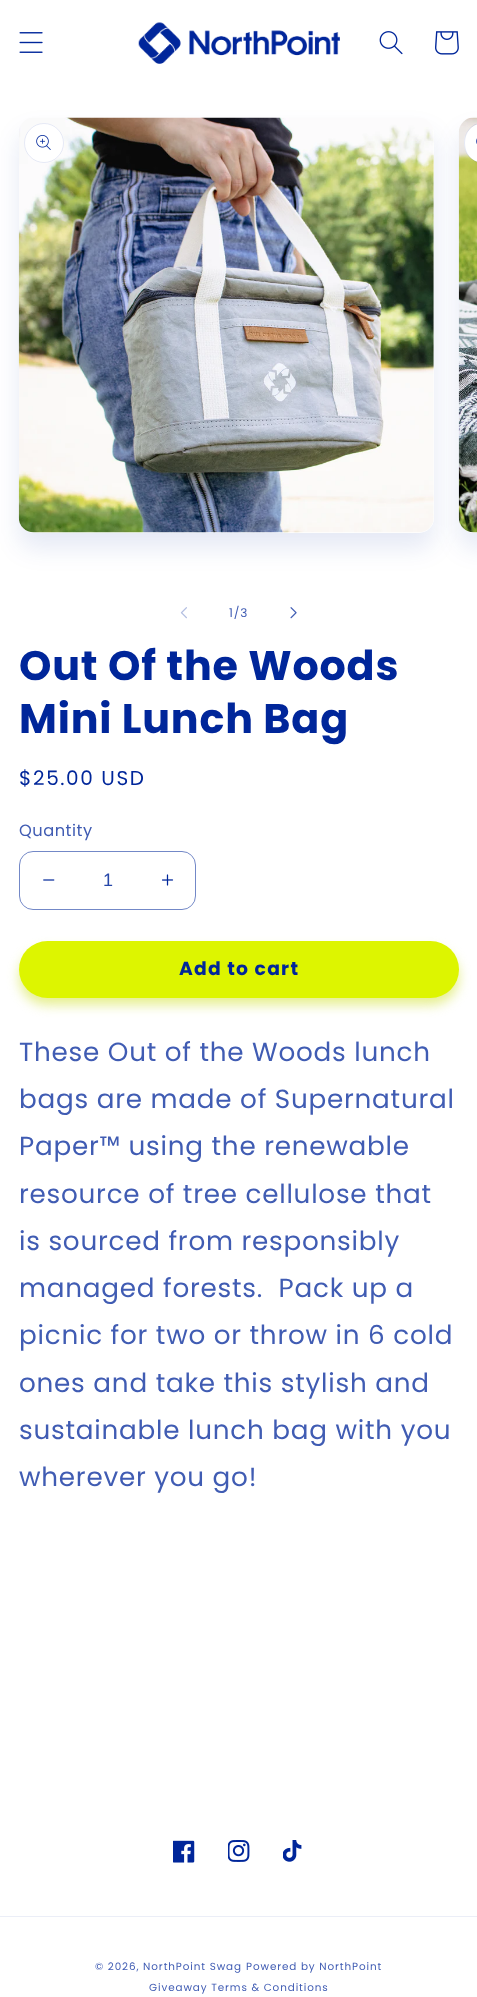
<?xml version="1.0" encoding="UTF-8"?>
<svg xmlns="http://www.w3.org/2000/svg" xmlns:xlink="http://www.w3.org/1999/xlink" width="477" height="1997">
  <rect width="100%" height="100%" fill="#ffffff" />
  <image x="19" y="32" width="24" height="21" xlink:href="image1.png" />
  <image x="138" y="22" width="202" height="42" xlink:href="image2.png" />
  <image x="379" y="31" width="24" height="24" xlink:href="image3.png" />
  <image x="435" y="31" width="24" height="24" xlink:href="image4.png" />
  <rect x="19" y="133" width="415" height="415" rx="15" fill="#00269a" fill-opacity="0.1" filter="blur(12.5px)" />
  <rect x="459" y="133" width="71" height="415" rx="15" fill="#00269a" fill-opacity="0.1" filter="blur(12.5px)" />
  <rect x="19" y="118" width="415" height="415" rx="15" fill="#ffffff" />
  <image x="18" y="117" width="416" height="416" xlink:href="image5.png" />
  <circle cx="44" cy="143" r="20" fill="#ffffff" />
  <circle cx="44" cy="143" r="19.5" fill="none" stroke="#00269a" stroke-opacity="0.1" />
  <image x="36" y="135" width="15" height="15" xlink:href="image6.png" />
  <path d="M 474 118 h 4 v 415 h -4 c -8.5 0 -15 -6.5 -15 -15 v -385 c 0 -8.5 6.5 -15 15 -15 z" fill="#ffffff" />
  <image x="458" y="117" width="19" height="416" xlink:href="image7.png" />
  <path d="M 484 123 h -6 v 40 h 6 c -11 0 -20 -9 -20 -20 c 0 -11 9 -20 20 -20 z" fill="#ffffff" />
  <rect x="464.5" y="123.5" width="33" height="39" rx="19.5" fill="none" stroke="#00269a" stroke-opacity="0.1" />
  <image x="476" y="138" width="1" height="6" xlink:href="image8.png" />
  <image x="180" y="607" width="7" height="12" xlink:href="image9.png" />
  <image x="290" y="607" width="7" height="12" xlink:href="image10.png" />
  <image x="43" y="879" width="12" height="2" xlink:href="image11.png" />
  <image x="162" y="874" width="12" height="12" xlink:href="image12.png" />
  <rect x="19.5" y="851.5" width="176" height="58" rx="13.5" fill="none" stroke="#7388c7" />
  <rect x="19" y="949" width="440" height="56" rx="28" fill="#cde022" fill-opacity="0.5" filter="blur(6px)" />
  <rect x="19" y="941" width="440" height="57" rx="28.5" fill="#ddf500" />
  <image x="173" y="1840" width="22" height="23" xlink:href="image13.png" />
  <image x="228" y="1840" width="22" height="22" xlink:href="image14.png" />
  <image x="283" y="1840" width="19" height="22" xlink:href="image15.png" />
  <rect y="1916" width="477" height="1" fill="#ebeef7" />
  <text x="229" y="617" style="font-family: Poppins; font-size: 12px; letter-spacing: 0.9px; fill: #405cb3">1/3</text>
  <text x="19" y="680" style="font-family: Poppins; font-size: 41.25px; font-weight: bold; letter-spacing: 0.8px; fill: #00269a">Out Of the Woods</text>
  <text x="19" y="733" style="font-family: Poppins; font-size: 41.25px; font-weight: bold; letter-spacing: 0.8px; fill: #00269a">Mini Lunch Bag</text>
  <text x="19" y="785" style="font-family: Poppins; font-size: 20px; letter-spacing: 1.6px; fill: #00269a">$25.00 USD</text>
  <text x="19" y="836" style="font-family: Poppins; font-size: 16.25px; letter-spacing: 0.5px; fill: #405cb3">Quantity</text>
  <text x="103" y="886" style="font-family: Liberation Sans; font-size: 18px; fill: #2647a9">1</text>
  <text x="179" y="975" style="font-family: Poppins; font-size: 18.75px; font-weight: bold; letter-spacing: 1.25px; fill: #00269a">Add to cart</text>
  <text x="19" y="1061" style="font-family: Poppins; font-size: 26.25px; letter-spacing: 0.75px; fill: #405cb3">These Out of the Woods lunch</text>
  <text x="19" y="1108" style="font-family: Poppins; font-size: 26.25px; letter-spacing: 0.75px; fill: #405cb3">bags are made of Supernatural</text>
  <text x="19" y="1155" style="font-family: Poppins; font-size: 26.25px; letter-spacing: 0.75px; fill: #405cb3">Paper™ using the renewable</text>
  <text x="19" y="1203" style="font-family: Poppins; font-size: 26.25px; letter-spacing: 0.75px; fill: #405cb3">resource of tree cellulose that</text>
  <text x="19" y="1250" style="font-family: Poppins; font-size: 26.25px; letter-spacing: 0.75px; fill: #405cb3">is sourced from responsibly</text>
  <text x="19" y="1297" style="font-family: Poppins; font-size: 26.25px; letter-spacing: 0.75px; fill: #405cb3" xml:space="preserve">managed forests.  Pack up a</text>
  <text x="19" y="1344" style="font-family: Poppins; font-size: 26.25px; letter-spacing: 0.75px; fill: #405cb3">picnic for two or throw in 6 cold</text>
  <text x="19" y="1392" style="font-family: Poppins; font-size: 26.25px; letter-spacing: 0.75px; fill: #405cb3">ones and take this stylish and</text>
  <text x="19" y="1439" style="font-family: Poppins; font-size: 26.25px; letter-spacing: 0.75px; fill: #405cb3">sustainable lunch bag with you</text>
  <text x="19" y="1486" style="font-family: Poppins; font-size: 26.25px; letter-spacing: 0.75px; fill: #405cb3">wherever you go!</text>
  <text x="95" y="1970" style="font-family: Poppins; font-size: 10.4px; letter-spacing: 0.9px; fill: #405cb3">© 2026, NorthPoint Swag</text>
  <text x="246" y="1970" style="font-family: Poppins; font-size: 10.4px; letter-spacing: 0.9px; fill: #405cb3">Powered by NorthPoint</text>
  <text x="149" y="1991" style="font-family: Poppins; font-size: 10.4px; letter-spacing: 0.9px; fill: #405cb3">Giveaway Terms &amp; Conditions</text>
</svg>
